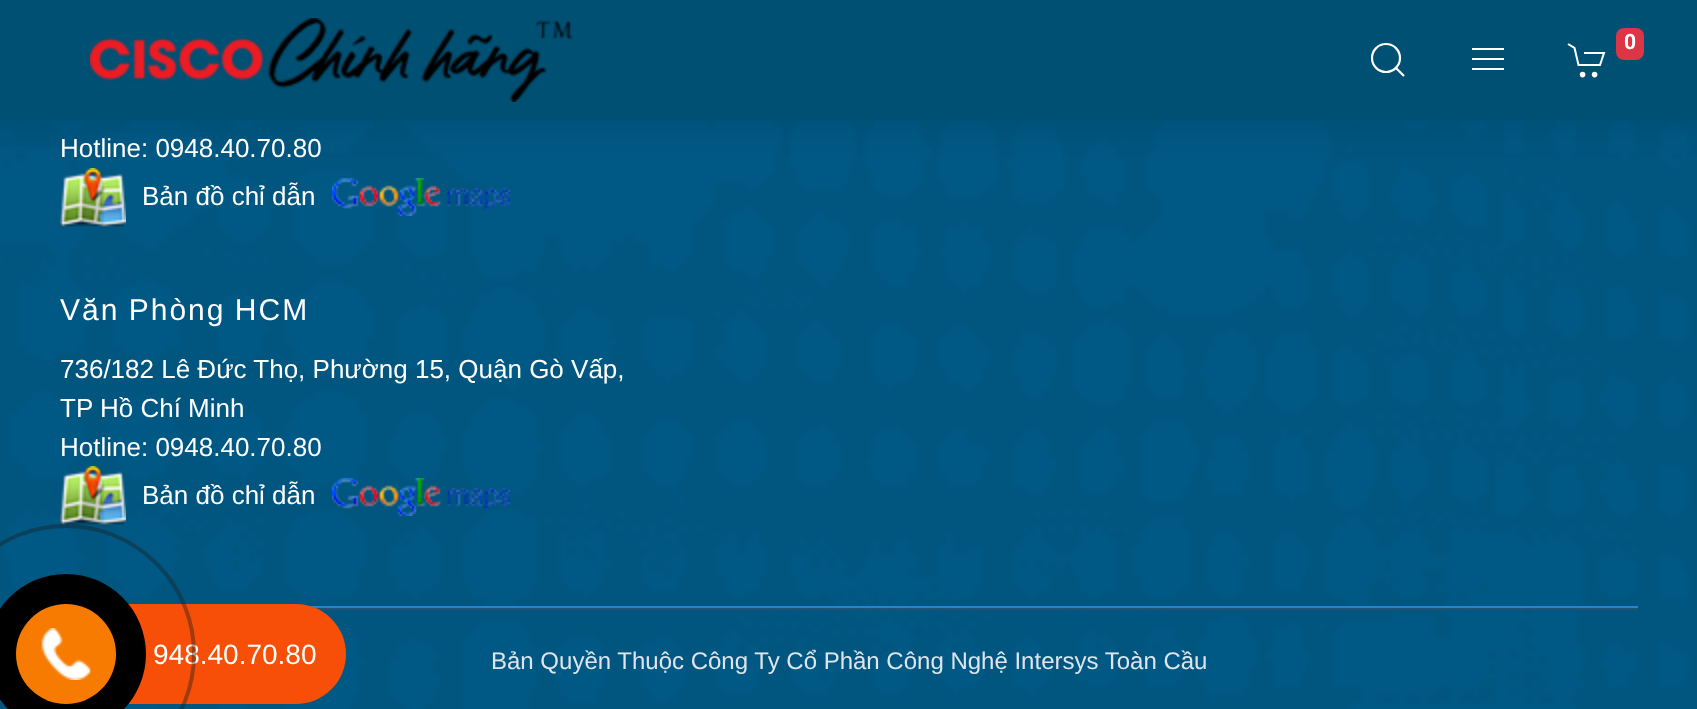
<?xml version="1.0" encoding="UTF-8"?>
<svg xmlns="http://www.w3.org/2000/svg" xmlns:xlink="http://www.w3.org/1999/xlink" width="1697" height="709">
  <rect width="100%" height="100%" fill="#ffffff" />
  <image x="0" y="120" width="1697" height="589" xlink:href="image2.png" />
  <image x="60" y="168" width="66" height="60" xlink:href="image3.png" />
  <rect y="10" width="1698" height="120" fill="#000000" fill-opacity="0.08" filter="blur(15px)" />
  <rect width="1697" height="120" fill="#005073" />
  <image x="90" y="18" width="483" height="84" xlink:href="image1.png" />
  <circle cx="1386" cy="58" r="14" fill="none" stroke="#ffffff" stroke-width="2.2" />
  <path d="M 1396 68 l 8 8 z" fill="none" stroke="#ffffff" stroke-width="2.2" />
  <rect x="1472" y="48" width="32" height="2" fill="#ffffff" />
  <rect x="1472" y="58" width="32" height="2" fill="#ffffff" />
  <rect x="1472" y="68" width="32" height="2" fill="#ffffff" />
  <path d="M 1568 44 l 6.5 4 l 4 17 h 21.5 l 4 -12 h -20" fill="none" stroke="#ffffff" stroke-width="2" />
  <rect x="1616" y="28" width="28" height="32" rx="8" fill="#dc3545" />
  <circle cx="1582.6" cy="74.6" r="2.8" fill="#ffffff" />
  <circle cx="1594.6" cy="74.6" r="2.8" fill="#ffffff" />
  <rect x="310" y="606" width="1328" height="2" fill="#2783ce" />
  <image x="332" y="178" width="178" height="38" xlink:href="image4.png" />
  <image x="60" y="466" width="66" height="60" xlink:href="image5.png" />
  <image x="332" y="478" width="178" height="38" xlink:href="image6.png" />
  <rect x="315" y="608" width="1323" height="2" fill="#1e5378" />
  <rect x="16" y="604" width="330" height="100" rx="50" fill="#f74f07" />
  <text x="1624" y="49" style="font-family: Roboto; font-size: 21px; font-weight: bold; fill: #ffffff">0</text>
  <text x="60" y="157" style="font-family: Liberation Sans; font-size: 26px; fill: #ffffff">Hotline: 0948.40.70.80</text>
  <text x="142" y="205" style="font-family: Liberation Sans; font-size: 26px; fill: #ffffff">Bản đồ chỉ dẫn</text>
  <text x="60" y="320" word-spacing="-1" style="font-family: Liberation Sans; font-size: 30px; letter-spacing: 2px; fill: #ffffff">Văn Phòng HCM</text>
  <text x="60" y="378" style="font-family: Liberation Sans; font-size: 26px; fill: #ffffff">736/182 Lê Đức Thọ, Phường 15, Quận Gò Vấp,</text>
  <text x="60" y="417" style="font-family: Liberation Sans; font-size: 26px; fill: #ffffff">TP Hồ Chí Minh</text>
  <text x="60" y="456" style="font-family: Liberation Sans; font-size: 26px; fill: #ffffff">Hotline: 0948.40.70.80</text>
  <text x="142" y="504" style="font-family: Liberation Sans; font-size: 26px; fill: #ffffff">Bản đồ chỉ dẫn</text>
  <text x="491" y="669" style="font-family: Liberation Sans; font-size: 24px; fill: #dee5ec">Bản Quyền Thuộc Công Ty Cổ Phần Công Nghệ Intersys Toàn Cầu</text>
  <text x="153" y="664" style="font-family: Liberation Sans; font-size: 28px; fill: #ffffff">948.40.70.80</text>
  <circle cx="66" cy="654" r="128" fill="none" stroke="#1e1e1e" stroke-opacity="0.4" stroke-width="4" />
  <circle cx="66" cy="654" r="80" fill="#000000" />
  <circle cx="66" cy="654" r="50" fill="#f77b00" />
  <image x="41" y="628" width="50" height="52" xlink:href="image7.png" />
</svg>
